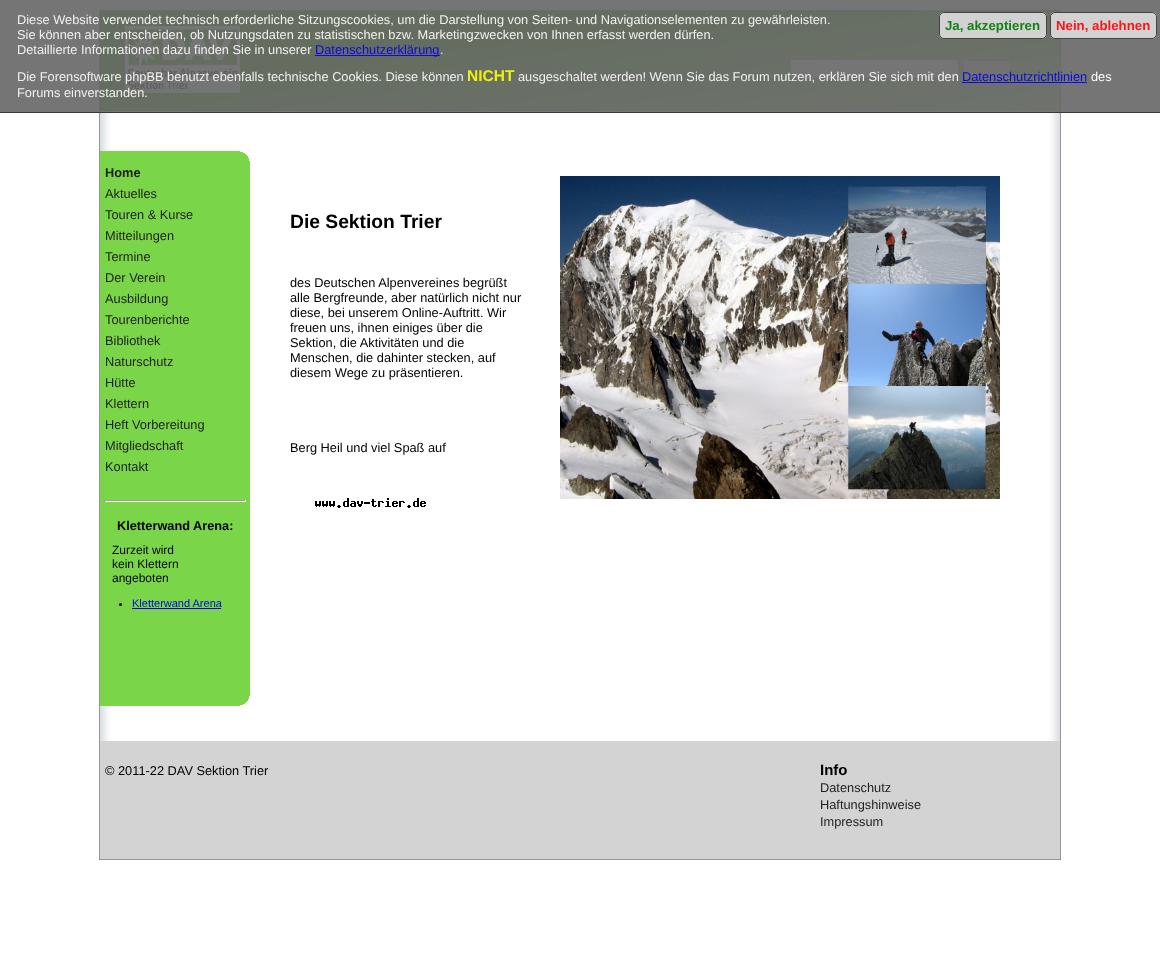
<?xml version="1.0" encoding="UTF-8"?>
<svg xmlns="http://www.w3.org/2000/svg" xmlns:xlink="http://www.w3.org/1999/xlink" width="1160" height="963">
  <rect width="100%" height="100%" fill="#ffffff" />
  <image x="100" y="111" width="960" height="630" xlink:href="image1.png" />
  <rect x="99.5" y="10.5" width="961" height="849" fill="none" stroke="#969696" />
  <image x="100" y="11" width="960" height="100" xlink:href="image2.png" />
  <image x="125" y="26" width="115" height="67" xlink:href="image3.png" />
  <rect x="790.5" y="59.5" width="168" height="19" fill="#ffffff" stroke="#a9a9a9" />
  <rect x="963.5" y="60.5" width="47" height="19" fill="#dfdfdf" stroke="#a9a9a9" />
  <rect width="1160" height="113" fill="#666666" fill-opacity="0.9" />
  <rect y="112" width="1160" height="1" fill="#333333" fill-opacity="0.9" />
  <rect x="315" y="55" width="125" height="1" fill="#0000ee" fill-opacity="0.9" />
  <rect x="939" y="12" width="108" height="27" rx="5" fill="#dddddd" fill-opacity="0.9" />
  <rect x="939.5" y="12.5" width="107" height="26" rx="4.5" fill="none" stroke="#333333" stroke-opacity="0.9" />
  <rect x="1050" y="12" width="107" height="27" rx="5" fill="#dddddd" fill-opacity="0.9" />
  <rect x="1050.5" y="12.5" width="106" height="26" rx="4.5" fill="none" stroke="#333333" stroke-opacity="0.9" />
  <rect x="962" y="82" width="125" height="1" fill="#0000ee" fill-opacity="0.9" />
  <rect x="100" y="151" width="150" height="555" fill="#7ad648" />
  <image x="240" y="151" width="10" height="10" xlink:href="image4.png" />
  <rect x="104" y="500" width="142" height="1" fill="#9f9f9f" />
  <rect x="245" y="500" width="1" height="2" fill="#eeeeee" />
  <rect x="104" y="501" width="142" height="1" fill="#eeeeee" />
  <rect x="104" y="500" width="1" height="2" fill="#9f9f9f" />
  <circle cx="120.5" cy="604.5" r="1.5" fill="#000000" />
  <rect x="132" y="608" width="89" height="1" fill="#0000ee" />
  <image x="240" y="696" width="10" height="10" xlink:href="image5.png" />
  <image x="560" y="176" width="440" height="323" xlink:href="image6.png" />
  <image x="315" y="498" width="111" height="10" xlink:href="image7.png" />
  <rect x="100" y="741" width="960" height="118" fill="#d3d3d3" />
  <text x="17" y="24" style="font-family: Liberation Sans; font-size: 12.8px; fill: #f0f1ef">Diese Website verwendet technisch erforderliche Sitzungscookies, um die Darstellung von Seiten- und Navigationselementen zu gewährleisten.</text>
  <text x="17" y="39" style="font-family: Liberation Sans; font-size: 12.8px; fill: #f0f1ef">Sie können aber entscheiden, ob Nutzungsdaten zu statistischen bzw. Marketingzwecken von Ihnen erfasst werden dürfen.</text>
  <text x="17" y="54" style="font-family: Liberation Sans; font-size: 12.8px; fill: #f0f1ef">Detaillierte Informationen dazu finden Sie in unserer</text>
  <text x="315" y="54" style="font-family: Liberation Sans; font-size: 12.8px; fill: #0a0be0">Datenschutzerklärung</text>
  <text x="440" y="54" style="font-family: Liberation Sans; font-size: 12.8px; fill: #eff7eb">.</text>
  <text x="945" y="30" style="font-family: Liberation Sans; font-size: 13.25px; font-weight: bold; fill: #158015">Ja, akzeptieren</text>
  <text x="1056" y="30" style="font-family: Liberation Sans; font-size: 13.25px; font-weight: bold; fill: #fb1515">Nein, ablehnen</text>
  <text x="17" y="81" style="font-family: Liberation Sans; font-size: 12.8px; fill: #f0f1ef">Die Forensoftware phpBB benutzt ebenfalls technische Cookies. Diese können</text>
  <text x="467" y="81" style="font-family: Liberation Sans; font-size: 15.5px; font-weight: bold; fill: #f0f10a">NICHT</text>
  <text x="518" y="81" style="font-family: Liberation Sans; font-size: 12.8px; fill: #f0f1ef">ausgeschaltet werden! Wenn Sie das Forum nutzen, erklären Sie sich mit den</text>
  <text x="962" y="81" style="font-family: Liberation Sans; font-size: 12.8px; fill: #0a0be0">Datenschutzrichtlinien</text>
  <text x="1091" y="81" style="font-family: Liberation Sans; font-size: 12.8px; fill: #ffffff">des</text>
  <text x="17" y="97" style="font-family: Liberation Sans; font-size: 12.8px; fill: #f0f1ef">Forums einverstanden.</text>
  <text x="105" y="177" style="font-family: Liberation Sans; font-size: 12.8px; font-weight: bold; fill: #222222">Home</text>
  <text x="105" y="198" style="font-family: Liberation Sans; font-size: 12.8px; fill: #222222">Aktuelles</text>
  <text x="105" y="219" style="font-family: Liberation Sans; font-size: 12.8px; fill: #222222">Touren &amp; Kurse</text>
  <text x="105" y="240" style="font-family: Liberation Sans; font-size: 12.8px; fill: #222222">Mitteilungen</text>
  <text x="105" y="261" style="font-family: Liberation Sans; font-size: 12.8px; fill: #222222">Termine</text>
  <text x="105" y="282" style="font-family: Liberation Sans; font-size: 12.8px; fill: #222222">Der Verein</text>
  <text x="105" y="303" style="font-family: Liberation Sans; font-size: 12.8px; fill: #222222">Ausbildung</text>
  <text x="105" y="324" style="font-family: Liberation Sans; font-size: 12.8px; fill: #222222">Tourenberichte</text>
  <text x="105" y="345" style="font-family: Liberation Sans; font-size: 12.8px; fill: #222222">Bibliothek</text>
  <text x="105" y="366" style="font-family: Liberation Sans; font-size: 12.8px; fill: #222222">Naturschutz</text>
  <text x="105" y="387" style="font-family: Liberation Sans; font-size: 12.8px; fill: #222222">Hütte</text>
  <text x="105" y="408" style="font-family: Liberation Sans; font-size: 12.8px; fill: #222222">Klettern</text>
  <text x="105" y="429" style="font-family: Liberation Sans; font-size: 12.8px; fill: #222222">Heft Vorbereitung</text>
  <text x="105" y="450" style="font-family: Liberation Sans; font-size: 12.8px; fill: #222222">Mitgliedschaft</text>
  <text x="105" y="471" style="font-family: Liberation Sans; font-size: 12.8px; fill: #222222">Kontakt</text>
  <text x="117" y="530" style="font-family: Liberation Sans; font-size: 12.75px; font-weight: bold; fill: #000000">Kletterwand Arena:</text>
  <text x="112" y="554" style="font-family: Liberation Sans; font-size: 12px; fill: #000000">Zurzeit wird</text>
  <text x="112" y="568" style="font-family: Liberation Sans; font-size: 12px; fill: #000000">kein Klettern</text>
  <text x="112" y="582" style="font-family: Liberation Sans; font-size: 12px; fill: #000000">angeboten</text>
  <text x="132" y="607" style="font-family: Liberation Sans; font-size: 11px; fill: #0000ee">Kletterwand Arena</text>
  <text x="290" y="228" style="font-family: Liberation Sans; font-size: 19.25px; font-weight: bold; fill: #000000">Die Sektion Trier</text>
  <text x="290" y="287" style="font-family: Liberation Sans; font-size: 12.8px; fill: #000000">des Deutschen Alpenvereines begrüßt</text>
  <text x="290" y="302" style="font-family: Liberation Sans; font-size: 12.8px; fill: #000000">alle Bergfreunde, aber natürlich nicht nur</text>
  <text x="290" y="317" style="font-family: Liberation Sans; font-size: 12.8px; fill: #000000">diese, bei unserem Online-Auftritt. Wir</text>
  <text x="290" y="332" style="font-family: Liberation Sans; font-size: 12.8px; fill: #000000">freuen uns, ihnen einiges über die</text>
  <text x="290" y="347" style="font-family: Liberation Sans; font-size: 12.8px; fill: #000000">Sektion, die Aktivitäten und die</text>
  <text x="290" y="362" style="font-family: Liberation Sans; font-size: 12.8px; fill: #000000">Menschen, die dahinter stecken, auf</text>
  <text x="290" y="377" style="font-family: Liberation Sans; font-size: 12.8px; fill: #000000">diesem Wege zu präsentieren.</text>
  <text x="290" y="452" style="font-family: Liberation Sans; font-size: 12.8px; fill: #000000">Berg Heil und viel Spaß auf</text>
  <text x="105" y="775" style="font-family: Liberation Sans; font-size: 12.8px; fill: #000000">© 2011-22 DAV Sektion Trier</text>
  <text x="820" y="775" style="font-family: Liberation Sans; font-size: 15px; font-weight: bold; fill: #000000">Info</text>
  <text x="820" y="792" style="font-family: Liberation Sans; font-size: 12.8px; fill: #222222">Datenschutz</text>
  <text x="820" y="809" style="font-family: Liberation Sans; font-size: 12.8px; fill: #222222">Haftungshinweise</text>
  <text x="820" y="826" style="font-family: Liberation Sans; font-size: 12.8px; fill: #222222">Impressum</text>
</svg>
